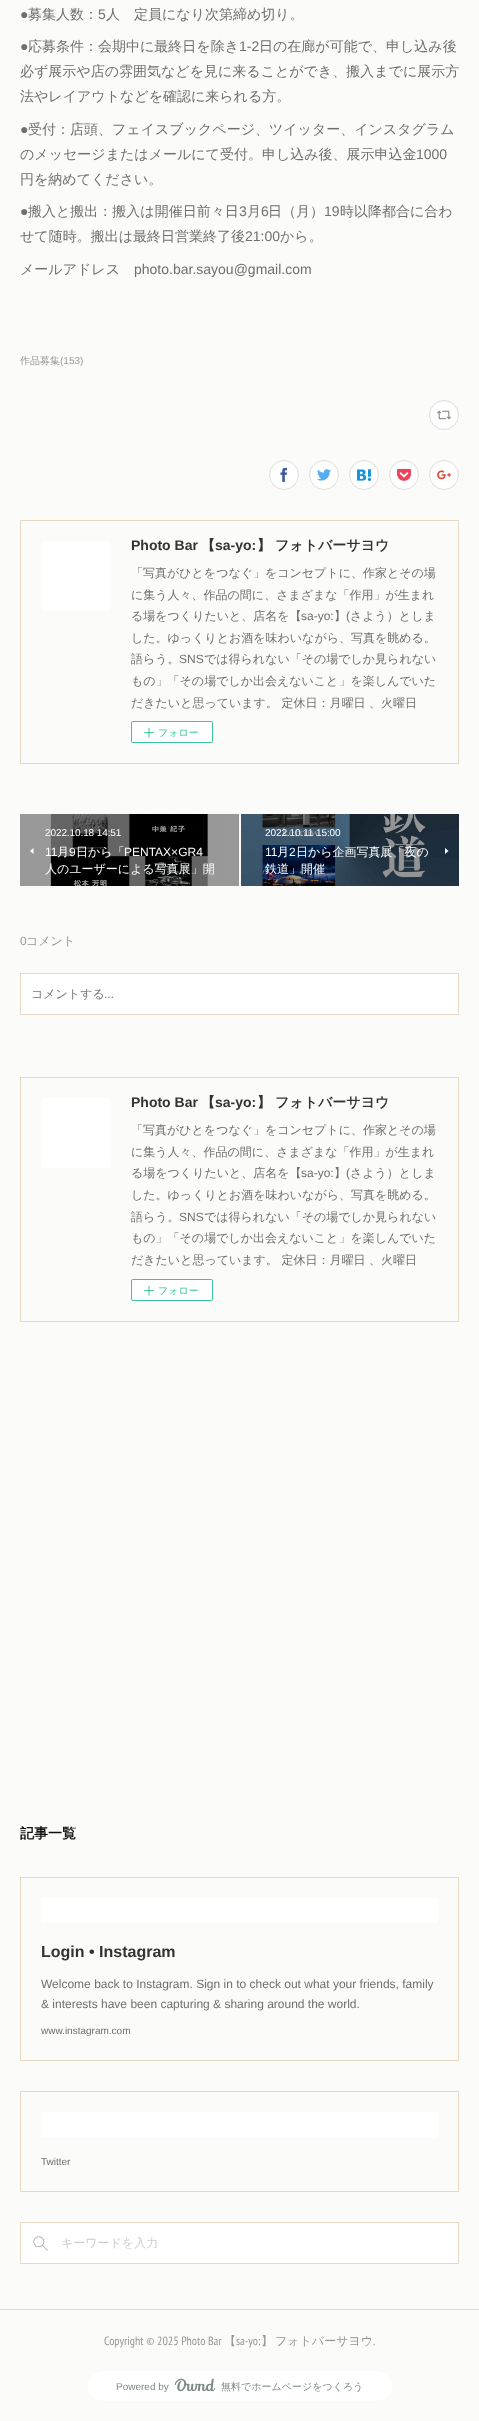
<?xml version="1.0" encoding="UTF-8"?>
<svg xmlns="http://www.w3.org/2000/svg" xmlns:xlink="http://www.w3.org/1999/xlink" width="479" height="2421">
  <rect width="100%" height="100%" fill="#fbfbf9" />
  <circle cx="444" cy="415" r="14.5" fill="#ffffff" stroke="#dddddd" />
  <image x="437" y="410" width="14" height="10" xlink:href="image1.png" />
  <circle cx="284" cy="475" r="14.5" fill="#ffffff" stroke="#dddddd" />
  <image x="280" y="467" width="7" height="15" xlink:href="image2.png" />
  <circle cx="324" cy="475" r="14.5" fill="#ffffff" stroke="#dddddd" />
  <image x="317" y="469" width="14" height="12" xlink:href="image3.png" />
  <circle cx="364" cy="475" r="14.5" fill="#ffffff" stroke="#dddddd" />
  <image x="357" y="469" width="14" height="12" xlink:href="image4.png" />
  <circle cx="404" cy="475" r="14.5" fill="#ffffff" stroke="#dddddd" />
  <image x="397" y="468" width="14" height="13" xlink:href="image5.png" />
  <circle cx="444" cy="475" r="14.5" fill="#ffffff" stroke="#dddddd" />
  <image x="437" y="470" width="14" height="10" xlink:href="image6.png" />
  <rect x="20.5" y="520.5" width="438" height="243" fill="none" stroke="#e7d9c3" />
  <rect x="41" y="541" width="70" height="70" rx="4" fill="#ffffff" />
  <rect x="131.5" y="721.5" width="81" height="21" rx="1.5" fill="#ffffff" stroke="#3dc49d" />
  <image x="144" y="727" width="10" height="11" xlink:href="image7.png" />
  <image x="20" y="814" width="219" height="72" xlink:href="image8.png" />
  <path d="M 33.5 854 v -6 l -3.5 3 z" fill="#ffffff" />
  <image x="241" y="814" width="218" height="72" xlink:href="image9.png" />
  <path d="M 445 848 v 6 l 3.5 -3 z" fill="#ffffff" />
  <rect x="20.5" y="973.5" width="438" height="41" fill="#ffffff" stroke="#e7d9c3" />
  <rect x="20.5" y="1077.5" width="438" height="244" fill="none" stroke="#e7d9c3" />
  <rect x="41" y="1098" width="70" height="70" rx="4" fill="#ffffff" />
  <rect x="131.5" y="1279.5" width="81" height="21" rx="1.5" fill="#ffffff" stroke="#3dc49d" />
  <image x="144" y="1285" width="10" height="11" xlink:href="image7.png" />
  <rect x="20.5" y="1877.5" width="438" height="183" fill="none" stroke="#e7d9c3" />
  <rect x="41" y="1898" width="397" height="25" fill="#ffffff" />
  <rect x="20.5" y="2091.5" width="438" height="100" fill="none" stroke="#e7d9c3" />
  <rect x="41" y="2112" width="397" height="26" fill="#ffffff" />
  <rect x="20.5" y="2222.5" width="438" height="41" fill="#ffffff" stroke="#e7d9c3" />
  <image x="33" y="2236" width="15" height="15" xlink:href="image10.png" />
  <rect y="2309" width="479" height="1" fill="#e7d9c3" />
  <rect x="88" y="2371" width="304" height="30" rx="15" fill="#ffffff" />
  <image x="174" y="2378" width="42" height="14" xlink:href="image11.png" />
  <text x="20" y="19" style="font-family: Liberation Sans; font-size: 14px; fill: #6f6f6e">●</text>
  <text x="28" y="19" style="font-family: WenQuanYi Zen Hei; font-size: 14px; font-weight: 500; fill: #6f6f6e">募集人数：</text>
  <text x="98" y="19" style="font-family: Liberation Sans; font-size: 14px; fill: #6f6f6e">5</text>
  <text x="106" y="19" style="font-family: WenQuanYi Zen Hei; font-size: 14px; font-weight: 500; fill: #6f6f6e">人　定員になり次第締め切り。</text>
  <text x="20" y="51" style="font-family: Liberation Sans; font-size: 14px; fill: #6f6f6e">●</text>
  <text x="28" y="51" style="font-family: WenQuanYi Zen Hei; font-size: 14px; font-weight: 500; fill: #6f6f6e">応募条件：会期中に最終日を除き</text>
  <text x="239" y="51" style="font-family: Liberation Sans; font-size: 14px; fill: #6f6f6e">1-2</text>
  <text x="259" y="51" style="font-family: WenQuanYi Zen Hei; font-size: 14px; font-weight: 500; fill: #6f6f6e">日の在廊が可能で、申し込み後</text>
  <text x="20" y="76" style="font-family: WenQuanYi Zen Hei; font-size: 14px; font-weight: 500; fill: #6f6f6e">必ず展示や店の雰囲気などを見に来ることができ、搬入までに展示方</text>
  <text x="20" y="101" style="font-family: WenQuanYi Zen Hei; font-size: 14px; font-weight: 500; fill: #6f6f6e">法やレイアウトなどを確認に来られる方。</text>
  <text x="20" y="134" style="font-family: Liberation Sans; font-size: 14px; fill: #6f6f6e">●</text>
  <text x="28" y="134" style="font-family: WenQuanYi Zen Hei; font-size: 14px; font-weight: 500; fill: #6f6f6e">受付：店頭、フェイスブックページ、ツイッター、インスタグラム</text>
  <text x="20" y="159" style="font-family: WenQuanYi Zen Hei; font-size: 14px; font-weight: 500; fill: #6f6f6e">のメッセージまたはメールにて受付。申し込み後、展示申込金</text>
  <text x="416" y="159" style="font-family: Liberation Sans; font-size: 14px; fill: #6f6f6e">1000</text>
  <text x="20" y="184" style="font-family: WenQuanYi Zen Hei; font-size: 14px; font-weight: 500; fill: #6f6f6e">円を納めてください。</text>
  <text x="20" y="216" style="font-family: Liberation Sans; font-size: 14px; fill: #6f6f6e">●</text>
  <text x="28" y="216" style="font-family: WenQuanYi Zen Hei; font-size: 14px; font-weight: 500; fill: #6f6f6e">搬入と搬出：搬入は開催日前々日</text>
  <text x="239" y="216" style="font-family: Liberation Sans; font-size: 14px; fill: #6f6f6e">3</text>
  <text x="247" y="216" style="font-family: WenQuanYi Zen Hei; font-size: 14px; font-weight: 500; fill: #6f6f6e">月</text>
  <text x="261" y="216" style="font-family: Liberation Sans; font-size: 14px; fill: #6f6f6e">6</text>
  <text x="268" y="216" style="font-family: WenQuanYi Zen Hei; font-size: 14px; font-weight: 500; fill: #6f6f6e">日（月）</text>
  <text x="324" y="216" style="font-family: Liberation Sans; font-size: 14px; fill: #6f6f6e">19</text>
  <text x="340" y="216" style="font-family: WenQuanYi Zen Hei; font-size: 14px; font-weight: 500; fill: #6f6f6e">時以降都合に合わ</text>
  <text x="20" y="241" style="font-family: WenQuanYi Zen Hei; font-size: 14px; font-weight: 500; fill: #6f6f6e">せて随時。搬出は最終日営業終了後</text>
  <text x="245" y="241" style="font-family: Liberation Sans; font-size: 14px; fill: #6f6f6e">21:00</text>
  <text x="280" y="241" style="font-family: WenQuanYi Zen Hei; font-size: 14px; font-weight: 500; fill: #6f6f6e">から。</text>
  <text x="20" y="274" style="font-family: WenQuanYi Zen Hei; font-size: 14px; font-weight: 500; fill: #6f6f6e">メールアドレス</text>
  <text x="134" y="274" style="font-family: Liberation Sans; font-size: 14px; fill: #6f6f6e">photo.bar.sayou@gmail.com</text>
  <text x="20" y="364" style="font-family: WenQuanYi Zen Hei; font-size: 10px; font-weight: 500; fill: #979796">作品募集</text>
  <text x="60" y="364" style="font-family: Liberation Sans; font-size: 10px; fill: #979796">(153)</text>
  <text x="131" y="550" style="font-family: Liberation Sans; font-size: 14px; font-weight: bold; fill: #333333">Photo Bar</text>
  <text x="201" y="550" style="font-family: WenQuanYi Zen Hei; font-size: 14px; font-weight: bold; fill: #333333">【</text>
  <text x="215" y="550" style="font-family: Liberation Sans; font-size: 14px; font-weight: bold; fill: #333333">sa-yo:</text>
  <text x="257" y="550" style="font-family: WenQuanYi Zen Hei; font-size: 14px; font-weight: bold; fill: #333333">】</text>
  <text x="275" y="550" style="font-family: WenQuanYi Zen Hei; font-size: 14px; font-weight: bold; fill: #333333">フォトバーサヨウ</text>
  <text x="131" y="577" style="font-family: WenQuanYi Zen Hei; font-size: 12px; font-weight: 500; fill: #6f6f6e">「写真がひとをつなぐ」をコンセプトに、作家とその場</text>
  <text x="131" y="599" style="font-family: WenQuanYi Zen Hei; font-size: 12px; font-weight: 500; fill: #6f6f6e">に集う人々、作品の間に、さまざまな「作用」が生まれ</text>
  <text x="131" y="620" style="font-family: WenQuanYi Zen Hei; font-size: 12px; font-weight: 500; fill: #6f6f6e">る場をつくりたいと、店名を【</text>
  <text x="301" y="620" style="font-family: Liberation Sans; font-size: 12px; fill: #6f6f6e">sa-yo:</text>
  <text x="334" y="620" style="font-family: WenQuanYi Zen Hei; font-size: 12px; font-weight: 500; fill: #6f6f6e">】</text>
  <text x="346" y="620" style="font-family: Liberation Sans; font-size: 12px; fill: #6f6f6e">(</text>
  <text x="350" y="620" style="font-family: WenQuanYi Zen Hei; font-size: 12px; font-weight: 500; fill: #6f6f6e">さよう）としま</text>
  <text x="131" y="642" style="font-family: WenQuanYi Zen Hei; font-size: 12px; font-weight: 500; fill: #6f6f6e">した。ゆっくりとお酒を味わいながら、写真を眺める。</text>
  <text x="131" y="663" style="font-family: WenQuanYi Zen Hei; font-size: 12px; font-weight: 500; fill: #6f6f6e">語らう。</text>
  <text x="179" y="663" style="font-family: Liberation Sans; font-size: 12px; fill: #6f6f6e">SNS</text>
  <text x="204" y="663" style="font-family: WenQuanYi Zen Hei; font-size: 12px; font-weight: 500; fill: #6f6f6e">では得られない「その場でしか見られない</text>
  <text x="131" y="685" style="font-family: WenQuanYi Zen Hei; font-size: 12px; font-weight: 500; fill: #6f6f6e">もの」「その場でしか出会えないこと」を楽しんでいた</text>
  <text x="131" y="707" style="font-family: WenQuanYi Zen Hei; font-size: 12px; font-weight: 500; fill: #6f6f6e">だきたいと思っています。 定休日：月曜日 、火曜日</text>
  <text x="158" y="736" style="font-family: WenQuanYi Zen Hei; font-size: 10px; font-weight: 500; fill: #3dc49d">フォロー</text>
  <text x="45" y="836" style="font-family: Liberation Sans; font-size: 10px; letter-spacing: -0.1px; fill: #ffffff">2022.10.18 14:51</text>
  <text x="45" y="856" style="font-family: Liberation Sans; font-size: 12px; fill: #ffffff">11</text>
  <text x="57" y="856" style="font-family: WenQuanYi Zen Hei; font-size: 12px; font-weight: 500; fill: #ffffff">月</text>
  <text x="69" y="856" style="font-family: Liberation Sans; font-size: 12px; fill: #ffffff">9</text>
  <text x="76" y="856" style="font-family: WenQuanYi Zen Hei; font-size: 12px; font-weight: 500; fill: #ffffff">日から「</text>
  <text x="124" y="856" style="font-family: Liberation Sans; font-size: 12px; fill: #ffffff">PENTAX×GR4</text>
  <text x="45" y="873" style="font-family: WenQuanYi Zen Hei; font-size: 12px; font-weight: 500; fill: #ffffff">人のユーザーによる写真展」開</text>
  <text x="265" y="836" style="font-family: Liberation Sans; font-size: 10px; letter-spacing: -0.1px; fill: #ffffff">2022.10.11 15:00</text>
  <text x="265" y="856" style="font-family: Liberation Sans; font-size: 12px; fill: #ffffff">11</text>
  <text x="277" y="856" style="font-family: WenQuanYi Zen Hei; font-size: 12px; font-weight: 500; fill: #ffffff">月</text>
  <text x="289" y="856" style="font-family: Liberation Sans; font-size: 12px; fill: #ffffff">2</text>
  <text x="296" y="856" style="font-family: WenQuanYi Zen Hei; font-size: 12px; font-weight: 500; fill: #ffffff">日から企画写真展「夜の</text>
  <text x="265" y="873" style="font-family: WenQuanYi Zen Hei; font-size: 12px; font-weight: 500; fill: #ffffff">鉄道」開催</text>
  <text x="20" y="945" style="font-family: Liberation Sans; font-size: 12px; fill: #979796">0</text>
  <text x="26" y="945" style="font-family: WenQuanYi Zen Hei; font-size: 12px; font-weight: 500; fill: #979796">コメント</text>
  <text x="31" y="998" style="font-family: WenQuanYi Zen Hei; font-size: 12px; font-weight: 500; fill: #757575">コメントする</text>
  <text x="104" y="998" style="font-family: Liberation Sans; font-size: 12px; fill: #757575">...</text>
  <text x="131" y="1107" style="font-family: Liberation Sans; font-size: 14px; font-weight: bold; fill: #333333">Photo Bar</text>
  <text x="201" y="1107" style="font-family: WenQuanYi Zen Hei; font-size: 14px; font-weight: bold; fill: #333333">【</text>
  <text x="215" y="1107" style="font-family: Liberation Sans; font-size: 14px; font-weight: bold; fill: #333333">sa-yo:</text>
  <text x="257" y="1107" style="font-family: WenQuanYi Zen Hei; font-size: 14px; font-weight: bold; fill: #333333">】</text>
  <text x="275" y="1107" style="font-family: WenQuanYi Zen Hei; font-size: 14px; font-weight: bold; fill: #333333">フォトバーサヨウ</text>
  <text x="131" y="1134" style="font-family: WenQuanYi Zen Hei; font-size: 12px; font-weight: 500; fill: #6f6f6e">「写真がひとをつなぐ」をコンセプトに、作家とその場</text>
  <text x="131" y="1156" style="font-family: WenQuanYi Zen Hei; font-size: 12px; font-weight: 500; fill: #6f6f6e">に集う人々、作品の間に、さまざまな「作用」が生まれ</text>
  <text x="131" y="1177" style="font-family: WenQuanYi Zen Hei; font-size: 12px; font-weight: 500; fill: #6f6f6e">る場をつくりたいと、店名を【</text>
  <text x="301" y="1177" style="font-family: Liberation Sans; font-size: 12px; fill: #6f6f6e">sa-yo:</text>
  <text x="334" y="1177" style="font-family: WenQuanYi Zen Hei; font-size: 12px; font-weight: 500; fill: #6f6f6e">】</text>
  <text x="346" y="1177" style="font-family: Liberation Sans; font-size: 12px; fill: #6f6f6e">(</text>
  <text x="350" y="1177" style="font-family: WenQuanYi Zen Hei; font-size: 12px; font-weight: 500; fill: #6f6f6e">さよう）としま</text>
  <text x="131" y="1199" style="font-family: WenQuanYi Zen Hei; font-size: 12px; font-weight: 500; fill: #6f6f6e">した。ゆっくりとお酒を味わいながら、写真を眺める。</text>
  <text x="131" y="1221" style="font-family: WenQuanYi Zen Hei; font-size: 12px; font-weight: 500; fill: #6f6f6e">語らう。</text>
  <text x="179" y="1221" style="font-family: Liberation Sans; font-size: 12px; fill: #6f6f6e">SNS</text>
  <text x="204" y="1221" style="font-family: WenQuanYi Zen Hei; font-size: 12px; font-weight: 500; fill: #6f6f6e">では得られない「その場でしか見られない</text>
  <text x="131" y="1242" style="font-family: WenQuanYi Zen Hei; font-size: 12px; font-weight: 500; fill: #6f6f6e">もの」「その場でしか出会えないこと」を楽しんでいた</text>
  <text x="131" y="1264" style="font-family: WenQuanYi Zen Hei; font-size: 12px; font-weight: 500; fill: #6f6f6e">だきたいと思っています。 定休日：月曜日 、火曜日</text>
  <text x="158" y="1294" style="font-family: WenQuanYi Zen Hei; font-size: 10px; font-weight: 500; fill: #3dc49d">フォロー</text>
  <text x="20" y="1838" style="font-family: WenQuanYi Zen Hei; font-size: 14px; font-weight: bold; fill: #111111">記事一覧</text>
  <text x="41" y="1957" style="font-family: Liberation Sans; font-size: 16px; font-weight: bold; fill: #333333">Login • Instagram</text>
  <text x="41" y="1988" style="font-family: Liberation Sans; font-size: 12px; fill: #6f6f6e">Welcome back to Instagram. Sign in to check out what your friends, family</text>
  <text x="41" y="2008" style="font-family: Liberation Sans; font-size: 12px; fill: #6f6f6e">&amp; interests have been capturing &amp; sharing around the world.</text>
  <text x="41" y="2034" style="font-family: Liberation Sans; font-size: 10px; fill: #6f6f6e">www.instagram.com</text>
  <text x="41" y="2165" style="font-family: Liberation Sans; font-size: 10px; fill: #6f6f6e">Twitter</text>
  <text x="61" y="2247" style="font-family: WenQuanYi Zen Hei; font-size: 12px; font-weight: 500; fill: #cccccc">キーワードを入力</text>
  <text x="104" y="2345" style="font-family: PT Sans Narrow; font-size: 12px; fill: #979796">Copyright © 2025 Photo Bar</text>
  <text x="224" y="2345" style="font-family: WenQuanYi Zen Hei; font-size: 12px; font-weight: 500; fill: #979796">【</text>
  <text x="236" y="2345" style="font-family: PT Sans Narrow; font-size: 12px; fill: #979796">sa-yo:</text>
  <text x="261" y="2345" style="font-family: WenQuanYi Zen Hei; font-size: 12px; font-weight: 500; fill: #979796">】</text>
  <text x="275" y="2345" style="font-family: WenQuanYi Zen Hei; font-size: 12px; font-weight: 500; fill: #979796">フォトバーサヨウ</text>
  <text x="373" y="2345" style="font-family: PT Sans Narrow; font-size: 12px; fill: #979796">.</text>
  <text x="116" y="2390" style="font-family: Liberation Sans; font-size: 10px; fill: #7d8b88">Powered by</text>
  <text x="221" y="2390" style="font-family: WenQuanYi Zen Hei; font-size: 10px; font-weight: 500; fill: #7d8b88">無料でホームページをつくろう</text>
</svg>
